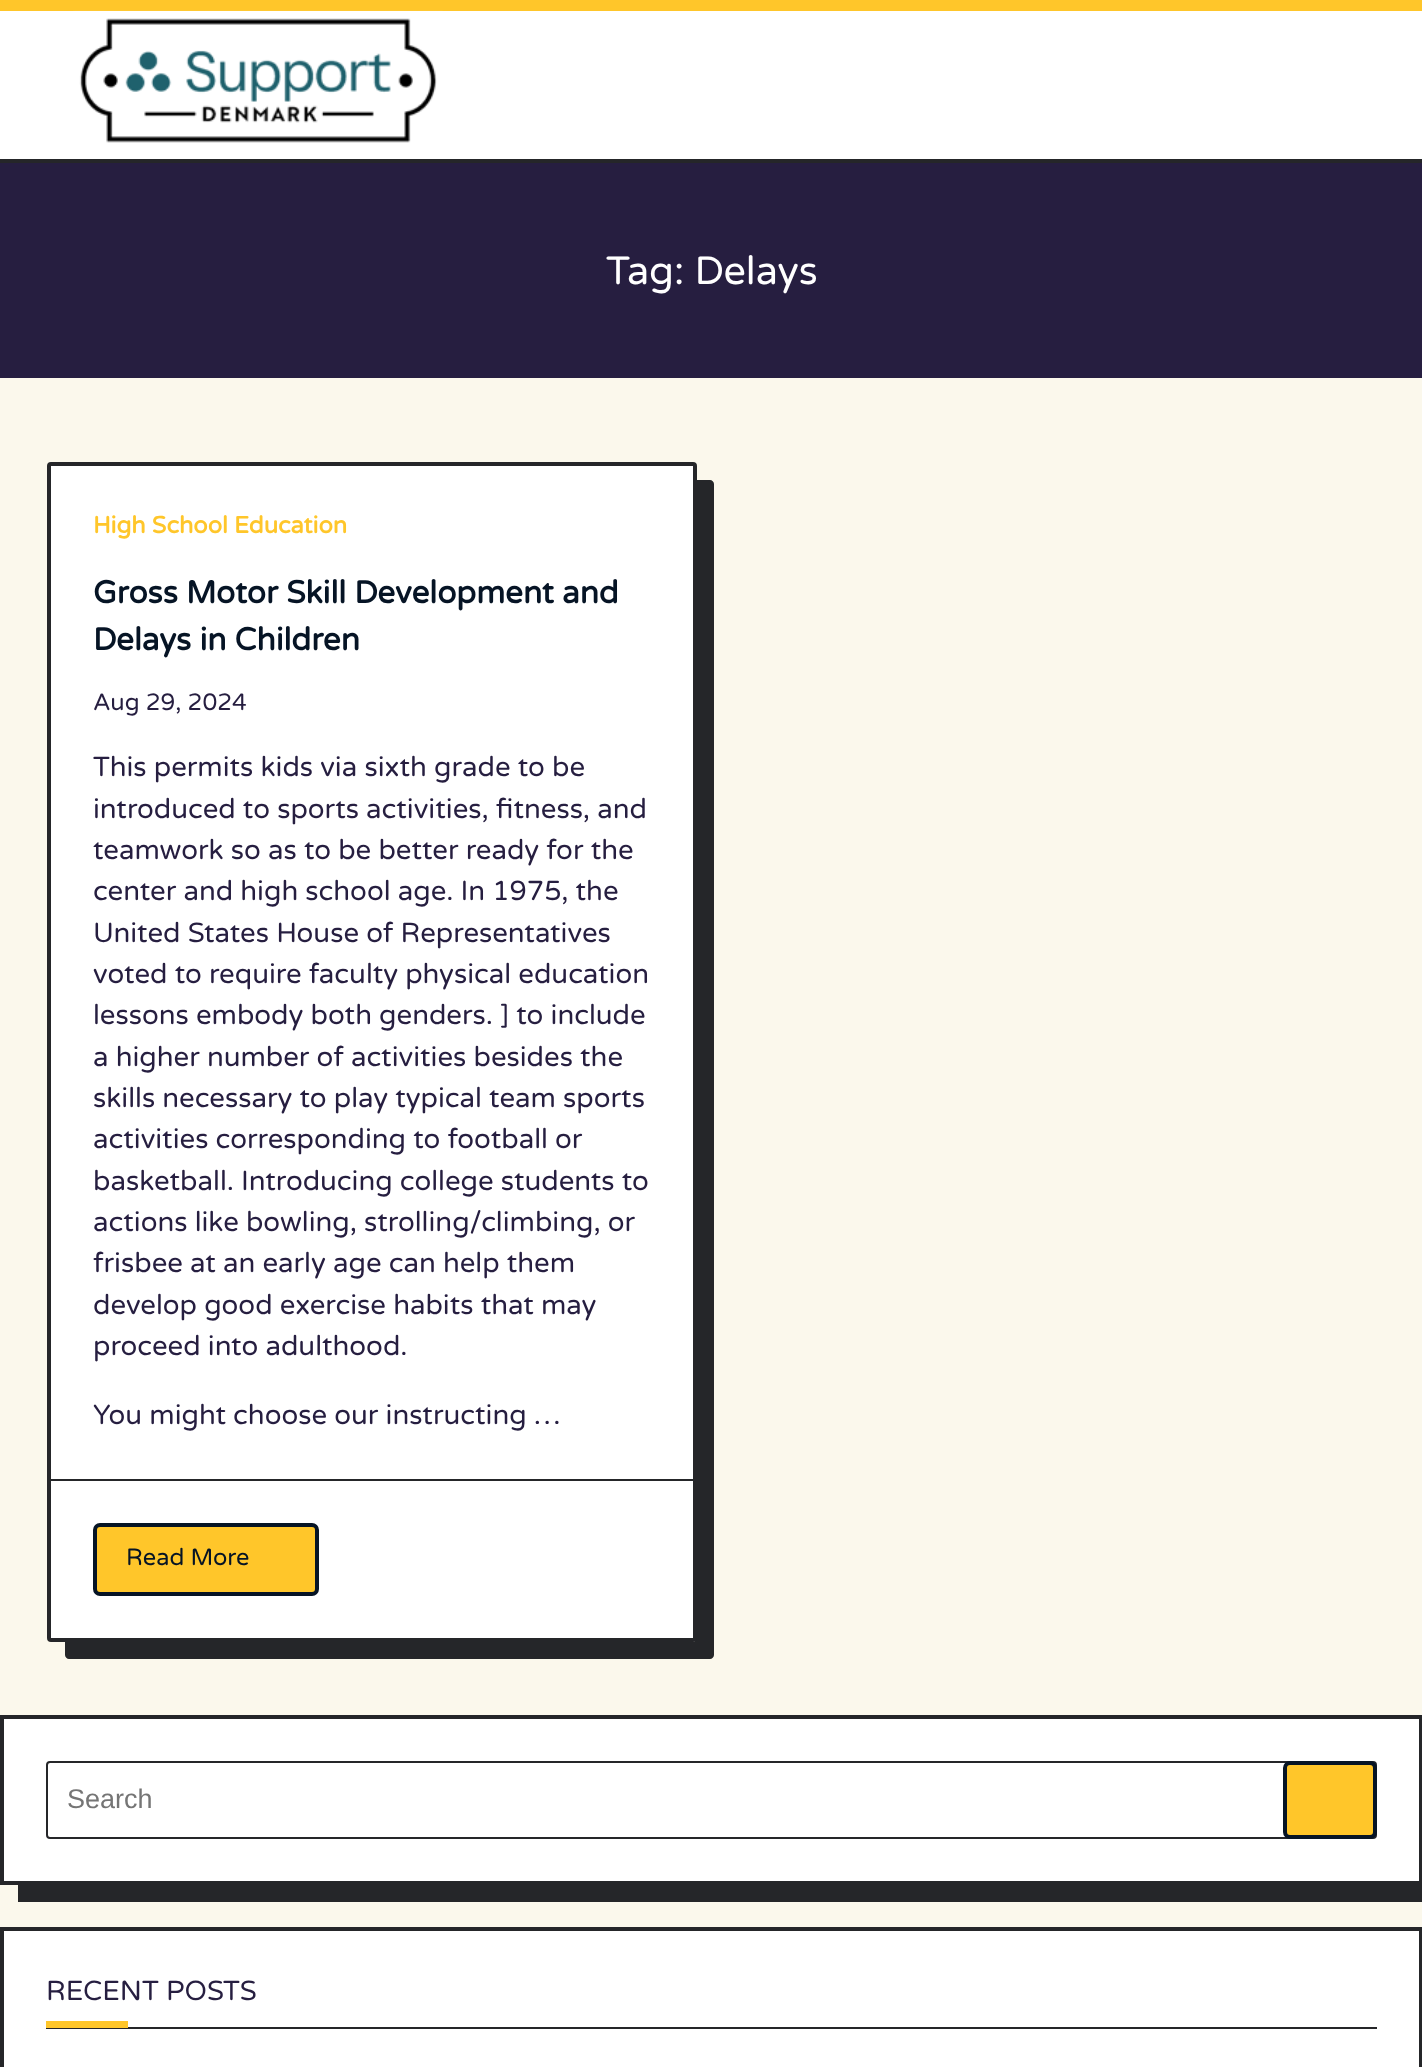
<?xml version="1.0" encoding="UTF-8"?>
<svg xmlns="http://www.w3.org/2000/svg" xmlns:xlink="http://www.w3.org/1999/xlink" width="1422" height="2067">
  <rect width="100%" height="100%" fill="#fbf8ec" />
  <rect y="11" width="1422" height="148" fill="#ffffff" />
  <rect width="1422" height="11" fill="#ffc62a" />
  <rect y="159" width="1422" height="4" fill="#252629" />
  <image x="73" y="10" width="370" height="133" xlink:href="image1.png" />
  <rect y="163" width="1422" height="215" fill="#261e40" />
  <path d="M 65 1642 v 13 c 0 2 2 4 4 4 h 641 c 2 0 4 -2 4 -4 v -1171 c 0 -2 -2 -4 -4 -4 h -14 v 1158 c 0 2 -1 4 -3 4 z" fill="#252629" />
  <rect x="49" y="464" width="646" height="1176" rx="2" fill="#ffffff" stroke="#252629" stroke-width="4" />
  <rect x="51" y="1479" width="642" height="2" fill="#252629" />
  <rect x="95" y="1525" width="222" height="69" rx="5" fill="#ffc62a" stroke="#061425" stroke-width="4" />
  <path d="M 18 1885 v 17 h 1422 v -169 h -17 v 152 z" fill="#252629" />
  <rect x="2" y="1717" width="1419" height="166" fill="#ffffff" stroke="#252629" stroke-width="4" />
  <rect x="47" y="1762" width="1329" height="76" rx="3" fill="none" stroke="#252629" stroke-width="2" />
  <rect x="1285" y="1763" width="90" height="74" rx="5" fill="#ffc62a" stroke="#061425" stroke-width="4" />
  <rect x="2" y="1929" width="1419" height="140" fill="#ffffff" stroke="#252629" stroke-width="4" />
  <rect x="46" y="2027" width="1331" height="2" fill="#252629" />
  <rect x="46" y="2021" width="82" height="7" fill="#ffc62a" />
  <text x="606" y="284" style="font-family: Varela Round; font-size: 39.5px; fill: #ffffff">Tag: Delays</text>
  <text x="93" y="533" style="font-family: Varela Round; font-size: 23.6px; font-weight: bold; fill: #ffc62a">High School Education</text>
  <text x="93" y="603" style="font-family: Varela Round; font-size: 31.5px; font-weight: bold; fill: #061425">Gross Motor Skill Development and</text>
  <text x="93" y="650" style="font-family: Varela Round; font-size: 31.5px; font-weight: bold; fill: #061425">Delays in Children</text>
  <text x="93" y="710" style="font-family: Varela Round; font-size: 23.6px; fill: #261e40">Aug 29, 2024</text>
  <text x="93" y="776" style="font-family: Varela Round; font-size: 27.6px; fill: #261e40">This permits kids via sixth grade to be</text>
  <text x="93" y="818" style="font-family: Varela Round; font-size: 27.6px; fill: #261e40">introduced to sports activities, fitness, and</text>
  <text x="93" y="859" style="font-family: Varela Round; font-size: 27.6px; fill: #261e40">teamwork so as to be better ready for the</text>
  <text x="93" y="900" style="font-family: Varela Round; font-size: 27.6px; fill: #261e40">center and high school age. In 1975, the</text>
  <text x="93" y="942" style="font-family: Varela Round; font-size: 27.6px; fill: #261e40">United States House of Representatives</text>
  <text x="93" y="983" style="font-family: Varela Round; font-size: 27.6px; fill: #261e40">voted to require faculty physical education</text>
  <text x="93" y="1024" style="font-family: Varela Round; font-size: 27.6px; fill: #261e40">lessons embody both genders. ] to include</text>
  <text x="93" y="1066" style="font-family: Varela Round; font-size: 27.6px; fill: #261e40">a higher number of activities besides the</text>
  <text x="93" y="1107" style="font-family: Varela Round; font-size: 27.6px; fill: #261e40">skills necessary to play typical team sports</text>
  <text x="93" y="1148" style="font-family: Varela Round; font-size: 27.6px; fill: #261e40">activities corresponding to football or</text>
  <text x="93" y="1190" style="font-family: Varela Round; font-size: 27.6px; fill: #261e40">basketball. Introducing college students to</text>
  <text x="93" y="1231" style="font-family: Varela Round; font-size: 27.6px; fill: #261e40">actions like bowling, strolling/climbing, or</text>
  <text x="93" y="1272" style="font-family: Varela Round; font-size: 27.6px; fill: #261e40">frisbee at an early age can help them</text>
  <text x="93" y="1314" style="font-family: Varela Round; font-size: 27.6px; fill: #261e40">develop good exercise habits that may</text>
  <text x="93" y="1355" style="font-family: Varela Round; font-size: 27.6px; fill: #261e40">proceed into adulthood.</text>
  <text x="93" y="1424" style="font-family: Varela Round; font-size: 27.6px; fill: #261e40">You might choose our instructing …</text>
  <text x="126" y="1565" style="font-family: Varela Round; font-size: 23.6px; fill: #061425">Read More</text>
  <text x="67" y="1808" style="font-family: Liberation Sans; font-size: 27px; fill: #757575">Search</text>
  <text x="46" y="2000" style="font-family: Varela Round; font-size: 27.6px; fill: #261e40">RECENT POSTS</text>
</svg>
